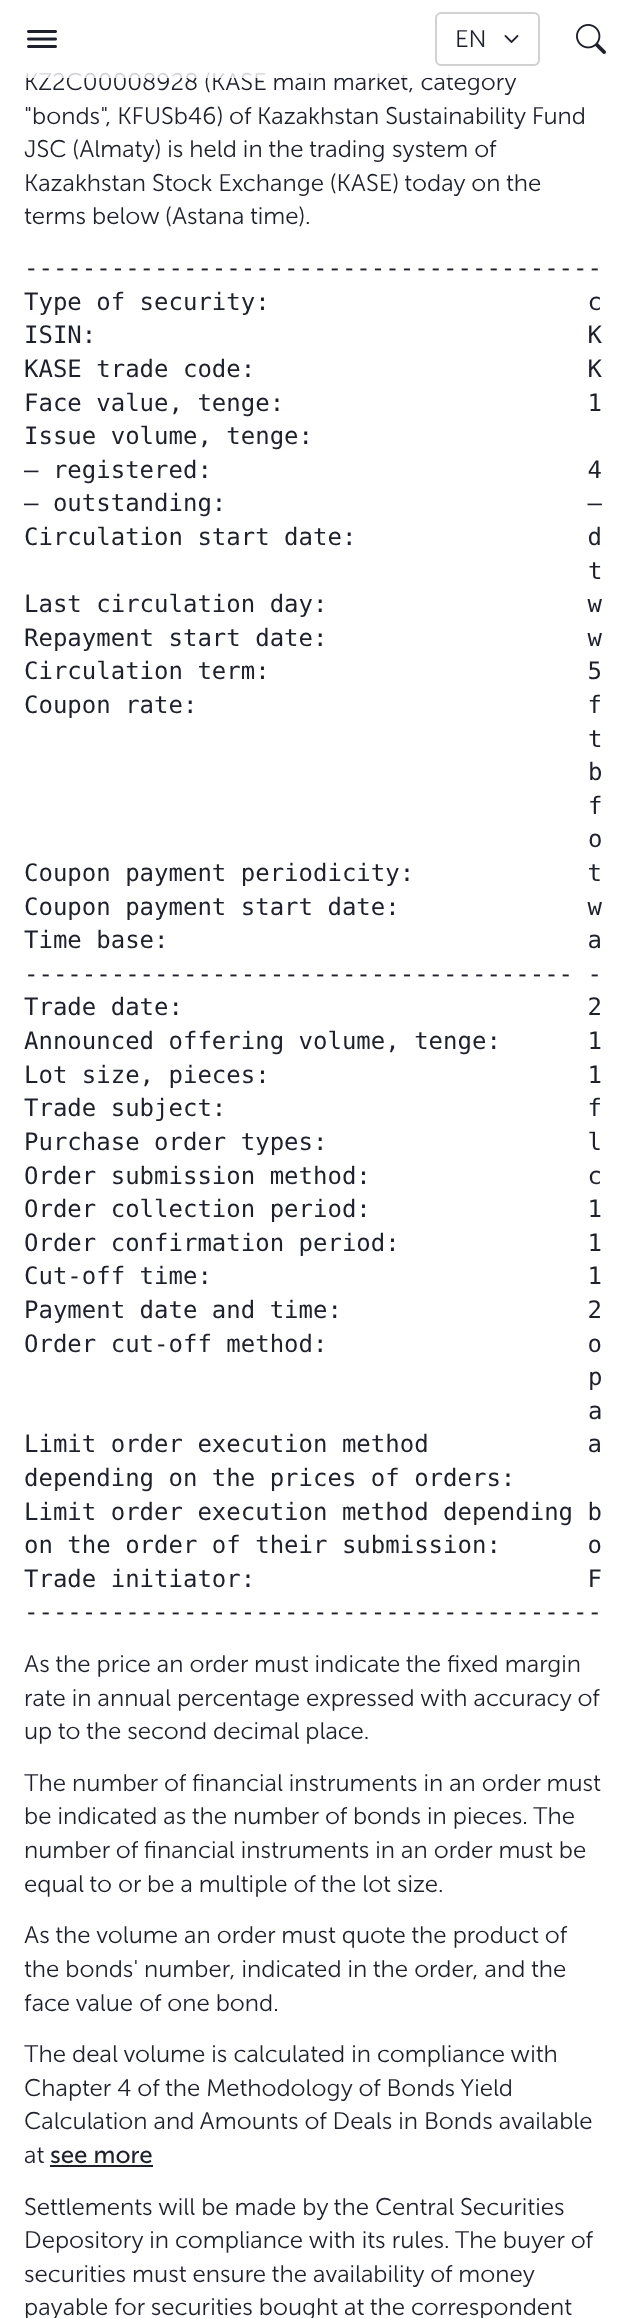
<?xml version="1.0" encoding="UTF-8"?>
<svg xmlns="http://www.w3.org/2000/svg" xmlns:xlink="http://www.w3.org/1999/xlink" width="630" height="2318">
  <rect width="100%" height="100%" fill="#ffffff" />
  <image x="27" y="30" width="30" height="18" xlink:href="image1.png" />
  <rect x="436" y="13" width="103" height="52" rx="5" fill="none" stroke="#d1d1d1" stroke-width="2" />
  <image x="504" y="35" width="15" height="8" xlink:href="image2.png" />
  <image x="576" y="24" width="30" height="30" xlink:href="image3.png" />
  <rect x="50" y="2165" width="103" height="2" fill="#1e212b" />
  <text x="455" y="47" style="font-family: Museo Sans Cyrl; font-size: 24px; font-weight: 300; fill: #1e212b">EN</text>
  <text x="24" y="90" style="font-family: Museo Sans Cyrl; font-size: 24px; font-weight: 300; fill: #1e212b">KZ2C00008928 (KASE main market, category</text>
  <rect x="26" y="72" width="490" height="6" fill="#ffffff" fill-opacity="0.8" />
  <text x="24" y="124" style="font-family: Museo Sans Cyrl; font-size: 24px; font-weight: 300; fill: #1e212b">"bonds", KFUSb46) of Kazakhstan Sustainability Fund</text>
  <text x="24" y="157" style="font-family: Museo Sans Cyrl; font-size: 24px; font-weight: 300; fill: #1e212b">JSC (Almaty) is held in the trading</text>
  <text x="392" y="157" style="font-family: Museo Sans Cyrl; font-size: 24px; font-weight: 300; fill: #1e212b">system of</text>
  <text x="24" y="191" style="font-family: Museo Sans Cyrl; font-size: 24px; font-weight: 300; fill: #1e212b">Kazakhstan Stock Exchange (KASE) today on the</text>
  <text x="24" y="224" style="font-family: Museo Sans Cyrl; font-size: 24px; font-weight: 300; fill: #1e212b">terms below (Astana time).</text>
  <text x="24" y="276" style="font-family: DejaVu Sans Mono; font-size: 24px; fill: #1e212b">----------------------------------------</text>
  <text x="24" y="310" style="font-family: DejaVu Sans Mono; font-size: 24px; fill: #1e212b" xml:space="preserve">Type of security:                      c</text>
  <text x="24" y="343" style="font-family: DejaVu Sans Mono; font-size: 24px; fill: #1e212b" xml:space="preserve">ISIN:                                  K</text>
  <text x="24" y="377" style="font-family: DejaVu Sans Mono; font-size: 24px; fill: #1e212b" xml:space="preserve">KASE trade code:                       K</text>
  <text x="24" y="411" style="font-family: DejaVu Sans Mono; font-size: 24px; fill: #1e212b" xml:space="preserve">Face value, tenge:                     1</text>
  <text x="24" y="444" style="font-family: DejaVu Sans Mono; font-size: 24px; fill: #1e212b">Issue volume, tenge:</text>
  <text x="24" y="478" style="font-family: DejaVu Sans Mono; font-size: 24px; fill: #1e212b" xml:space="preserve">– registered:                          4</text>
  <text x="24" y="511" style="font-family: DejaVu Sans Mono; font-size: 24px; fill: #1e212b" xml:space="preserve">– outstanding:                         –</text>
  <text x="24" y="545" style="font-family: DejaVu Sans Mono; font-size: 24px; fill: #1e212b" xml:space="preserve">Circulation start date:                d</text>
  <text x="588" y="579" style="font-family: DejaVu Sans Mono; font-size: 24px; fill: #1e212b">t</text>
  <text x="24" y="612" style="font-family: DejaVu Sans Mono; font-size: 24px; fill: #1e212b" xml:space="preserve">Last circulation day:                  w</text>
  <text x="24" y="646" style="font-family: DejaVu Sans Mono; font-size: 24px; fill: #1e212b" xml:space="preserve">Repayment start date:                  w</text>
  <text x="24" y="679" style="font-family: DejaVu Sans Mono; font-size: 24px; fill: #1e212b" xml:space="preserve">Circulation term:                      5</text>
  <text x="24" y="713" style="font-family: DejaVu Sans Mono; font-size: 24px; fill: #1e212b" xml:space="preserve">Coupon rate:                           f</text>
  <text x="588" y="747" style="font-family: DejaVu Sans Mono; font-size: 24px; fill: #1e212b">t</text>
  <text x="588" y="780" style="font-family: DejaVu Sans Mono; font-size: 24px; fill: #1e212b">b</text>
  <text x="588" y="814" style="font-family: DejaVu Sans Mono; font-size: 24px; fill: #1e212b">f</text>
  <text x="588" y="847" style="font-family: DejaVu Sans Mono; font-size: 24px; fill: #1e212b">o</text>
  <text x="24" y="881" style="font-family: DejaVu Sans Mono; font-size: 24px; fill: #1e212b" xml:space="preserve">Coupon payment periodicity:            t</text>
  <text x="24" y="915" style="font-family: DejaVu Sans Mono; font-size: 24px; fill: #1e212b" xml:space="preserve">Coupon payment start date:             w</text>
  <text x="24" y="948" style="font-family: DejaVu Sans Mono; font-size: 24px; fill: #1e212b" xml:space="preserve">Time base:                             a</text>
  <text x="24" y="982" style="font-family: DejaVu Sans Mono; font-size: 24px; fill: #1e212b">-------------------------------------- -</text>
  <text x="24" y="1015" style="font-family: DejaVu Sans Mono; font-size: 24px; fill: #1e212b" xml:space="preserve">Trade date:                            2</text>
  <text x="24" y="1049" style="font-family: DejaVu Sans Mono; font-size: 24px; fill: #1e212b" xml:space="preserve">Announced offering volume, tenge:      1</text>
  <text x="24" y="1083" style="font-family: DejaVu Sans Mono; font-size: 24px; fill: #1e212b" xml:space="preserve">Lot size, pieces:                      1</text>
  <text x="24" y="1116" style="font-family: DejaVu Sans Mono; font-size: 24px; fill: #1e212b" xml:space="preserve">Trade subject:                         f</text>
  <text x="24" y="1150" style="font-family: DejaVu Sans Mono; font-size: 24px; fill: #1e212b" xml:space="preserve">Purchase order types:                  l</text>
  <text x="24" y="1184" style="font-family: DejaVu Sans Mono; font-size: 24px; fill: #1e212b" xml:space="preserve">Order submission method:               c</text>
  <text x="24" y="1217" style="font-family: DejaVu Sans Mono; font-size: 24px; fill: #1e212b" xml:space="preserve">Order collection period:               1</text>
  <text x="24" y="1251" style="font-family: DejaVu Sans Mono; font-size: 24px; fill: #1e212b" xml:space="preserve">Order confirmation period:             1</text>
  <text x="24" y="1284" style="font-family: DejaVu Sans Mono; font-size: 24px; fill: #1e212b" xml:space="preserve">Cut-off time:                          1</text>
  <text x="24" y="1318" style="font-family: DejaVu Sans Mono; font-size: 24px; fill: #1e212b" xml:space="preserve">Payment date and time:                 2</text>
  <text x="24" y="1352" style="font-family: DejaVu Sans Mono; font-size: 24px; fill: #1e212b" xml:space="preserve">Order cut-off method:                  o</text>
  <text x="588" y="1385" style="font-family: DejaVu Sans Mono; font-size: 24px; fill: #1e212b">p</text>
  <text x="588" y="1419" style="font-family: DejaVu Sans Mono; font-size: 24px; fill: #1e212b">a</text>
  <text x="24" y="1452" style="font-family: DejaVu Sans Mono; font-size: 24px; fill: #1e212b" xml:space="preserve">Limit order execution method           a</text>
  <text x="24" y="1486" style="font-family: DejaVu Sans Mono; font-size: 24px; fill: #1e212b">depending on the prices of orders:</text>
  <text x="24" y="1520" style="font-family: DejaVu Sans Mono; font-size: 24px; fill: #1e212b">Limit order execution method depending b</text>
  <text x="24" y="1553" style="font-family: DejaVu Sans Mono; font-size: 24px; fill: #1e212b" xml:space="preserve">on the order of their submission:      o</text>
  <text x="24" y="1587" style="font-family: DejaVu Sans Mono; font-size: 24px; fill: #1e212b" xml:space="preserve">Trade initiator:                       F</text>
  <text x="24" y="1620" style="font-family: DejaVu Sans Mono; font-size: 24px; fill: #1e212b">----------------------------------------</text>
  <text x="24" y="1672" style="font-family: Museo Sans Cyrl; font-size: 24px; font-weight: 300; fill: #1e212b">As the price an order must indicate the fixed margin</text>
  <text x="24" y="1706" style="font-family: Museo Sans Cyrl; font-size: 24px; font-weight: 300; fill: #1e212b">rate in annual percentage</text>
  <text x="306" y="1706" style="font-family: Museo Sans Cyrl; font-size: 24px; font-weight: 300; fill: #1e212b">expressed with accuracy of</text>
  <text x="24" y="1739" style="font-family: Museo Sans Cyrl; font-size: 24px; font-weight: 300; fill: #1e212b">up to the second decimal place.</text>
  <text x="24" y="1791" style="font-family: Museo Sans Cyrl; font-size: 24px; font-weight: 300; fill: #1e212b">The number of financial instruments in an order must</text>
  <text x="24" y="1824" style="font-family: Museo Sans Cyrl; font-size: 24px; font-weight: 300; fill: #1e212b">be indicated as the number of bonds in pieces. The</text>
  <text x="24" y="1858" style="font-family: Museo Sans Cyrl; font-size: 24px; font-weight: 300; fill: #1e212b">number of financial instruments in an order must be</text>
  <text x="24" y="1892" style="font-family: Museo Sans Cyrl; font-size: 24px; font-weight: 300; fill: #1e212b">equal to or be a multiple of the lot size.</text>
  <text x="24" y="1943" style="font-family: Museo Sans Cyrl; font-size: 24px; font-weight: 300; fill: #1e212b">As the volume an order must quote the product of</text>
  <text x="24" y="1977" style="font-family: Museo Sans Cyrl; font-size: 24px; font-weight: 300; fill: #1e212b">the bonds' number, indicated in the order, and the</text>
  <text x="24" y="2011" style="font-family: Museo Sans Cyrl; font-size: 24px; font-weight: 300; fill: #1e212b">face value of one bond.</text>
  <text x="24" y="2062" style="font-family: Museo Sans Cyrl; font-size: 24px; font-weight: 300; fill: #1e212b">The deal volume is calculated in compliance with</text>
  <text x="24" y="2096" style="font-family: Museo Sans Cyrl; font-size: 24px; font-weight: 300; fill: #1e212b">Chapter 4 of the Methodology of Bonds Yield</text>
  <text x="24" y="2129" style="font-family: Museo Sans Cyrl; font-size: 24px; font-weight: 300; fill: #1e212b">Calculation and Amounts of Deals in Bonds available</text>
  <text x="24" y="2163" style="font-family: Museo Sans Cyrl; font-size: 24px; font-weight: 300; fill: #1e212b">at</text>
  <text x="50" y="2163" style="font-family: Museo Sans Cyrl; font-size: 24px; fill: #1e212b">see more</text>
  <text x="24" y="2215" style="font-family: Museo Sans Cyrl; font-size: 24px; font-weight: 300; fill: #1e212b">Settlements will be made by the Central Securities</text>
  <text x="24" y="2248" style="font-family: Museo Sans Cyrl; font-size: 24px; font-weight: 300; fill: #1e212b">Depository in compliance with its rules. The buyer of</text>
  <text x="24" y="2282" style="font-family: Museo Sans Cyrl; font-size: 24px; font-weight: 300; fill: #1e212b">securities must ensure the availability of money</text>
  <text x="24" y="2315" style="font-family: Museo Sans Cyrl; font-size: 24px; font-weight: 300; fill: #1e212b">payable for securities bought at the correspondent</text>
</svg>
